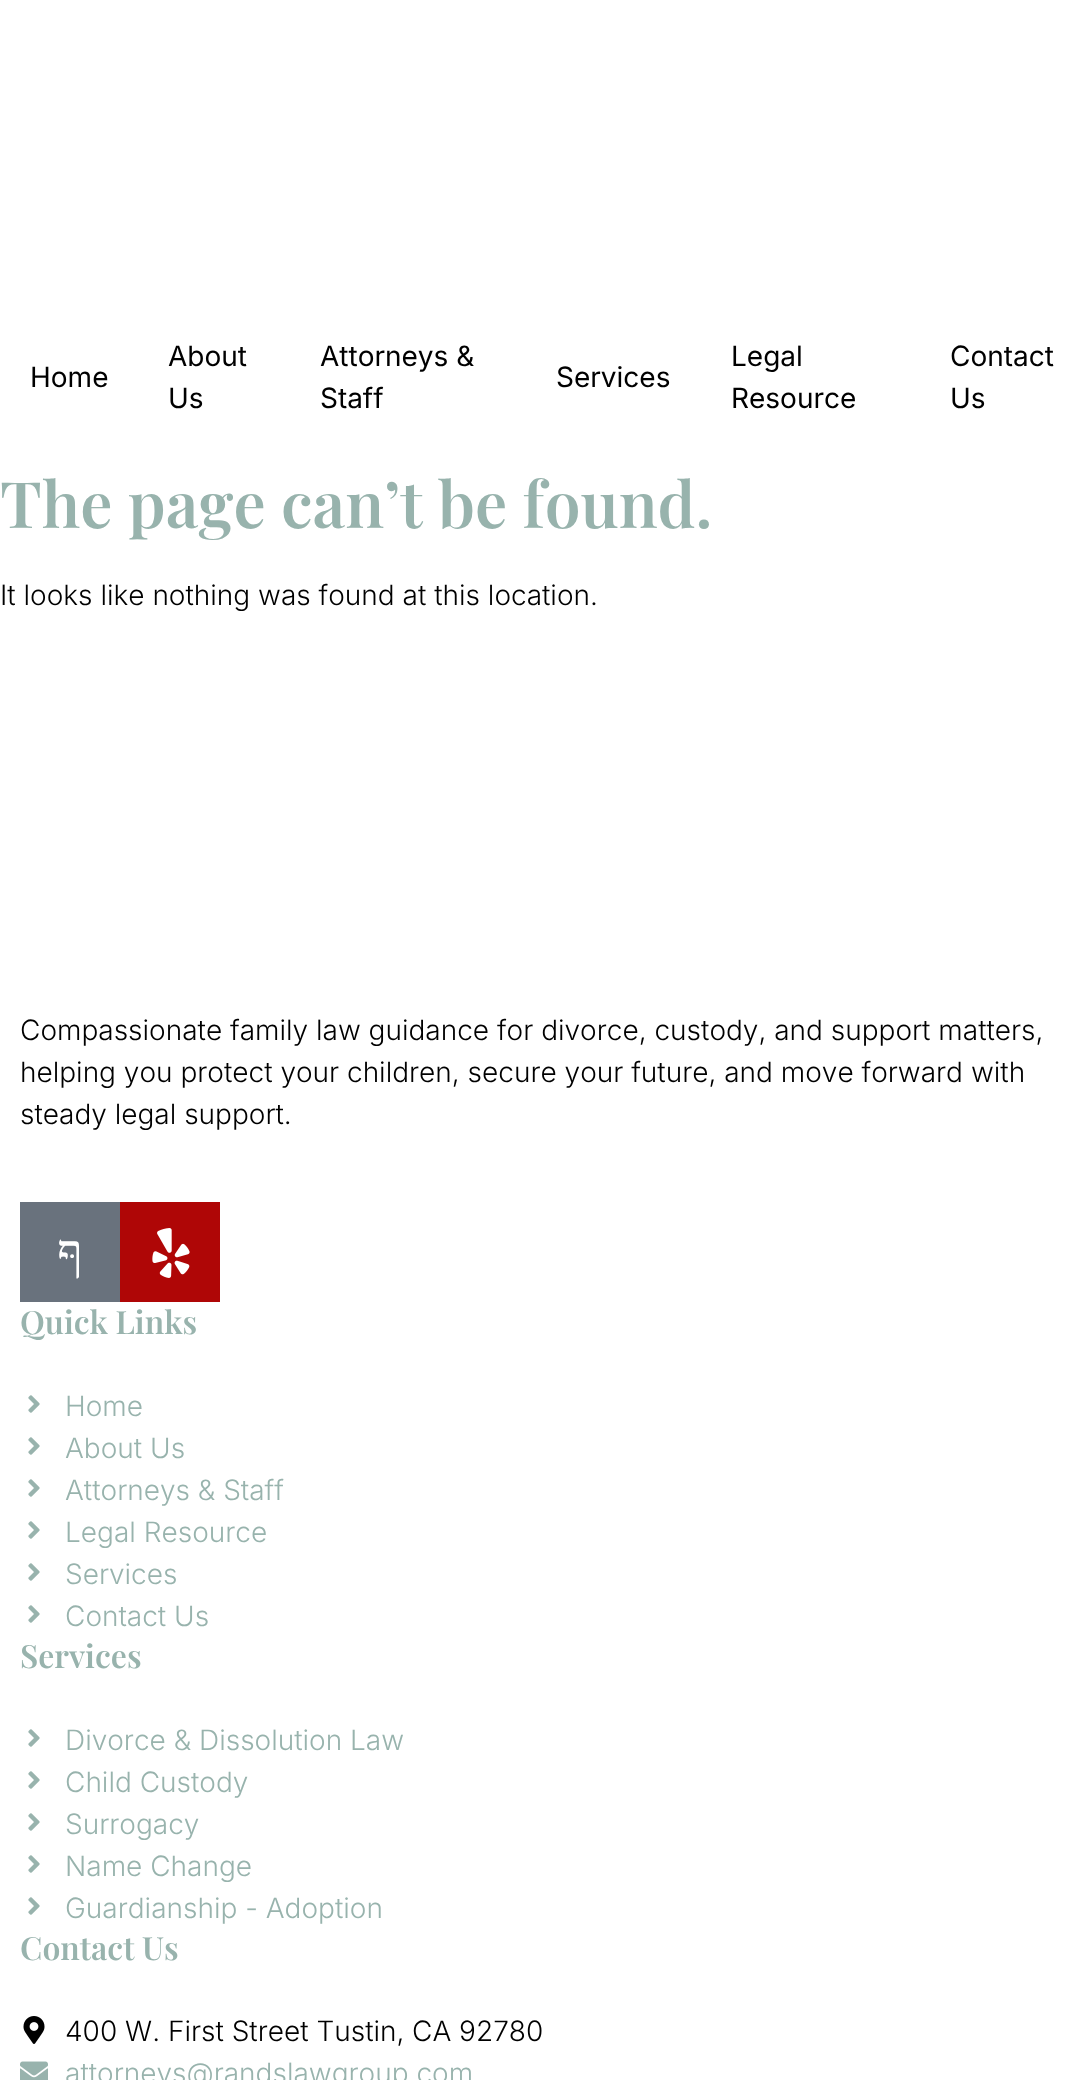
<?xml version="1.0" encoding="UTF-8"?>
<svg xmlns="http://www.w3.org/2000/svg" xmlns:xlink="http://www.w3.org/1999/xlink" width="1092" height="2080">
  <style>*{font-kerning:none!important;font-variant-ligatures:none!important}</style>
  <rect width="100%" height="100%" fill="#ffffff" />
  <rect x="20" y="1202" width="100" height="100" fill="#69727d" />
  <rect x="120" y="1202" width="100" height="100" fill="#af0606" />
  <image x="152" y="1228" width="38" height="50" xlink:href="image1.png" />
  <image x="28" y="1395" width="12" height="18" xlink:href="image2.png" />
  <image x="28" y="1437" width="12" height="18" xlink:href="image2.png" />
  <image x="28" y="1479" width="12" height="18" xlink:href="image2.png" />
  <image x="28" y="1521" width="12" height="18" xlink:href="image2.png" />
  <image x="28" y="1563" width="12" height="18" xlink:href="image2.png" />
  <image x="28" y="1605" width="12" height="18" xlink:href="image2.png" />
  <image x="28" y="1729" width="12" height="18" xlink:href="image2.png" />
  <image x="28" y="1771" width="12" height="18" xlink:href="image2.png" />
  <image x="28" y="1813" width="12" height="18" xlink:href="image2.png" />
  <image x="28" y="1855" width="12" height="18" xlink:href="image2.png" />
  <image x="28" y="1897" width="12" height="18" xlink:href="image2.png" />
  <image x="23" y="2016" width="22" height="28" xlink:href="image3.png" />
  <image x="20" y="2061" width="28" height="19" xlink:href="image4.png" />
  <text x="30" y="387" style="font-family: Inter; font-size: 28px; fill: #000000">Home</text>
  <text x="168" y="366" style="font-family: Inter; font-size: 28px; fill: #000000">About</text>
  <text x="168" y="408" style="font-family: Inter; font-size: 28px; fill: #000000">Us</text>
  <text x="320" y="366" style="font-family: Inter; font-size: 28px; fill: #000000">Attorneys &amp;</text>
  <text x="320" y="408" style="font-family: Inter; font-size: 28px; fill: #000000">Staff</text>
  <text x="556" y="387" style="font-family: Inter; font-size: 28px; fill: #000000">Services</text>
  <text x="731" y="366" style="font-family: Inter; font-size: 28px; fill: #000000">Legal</text>
  <text x="731" y="408" style="font-family: Inter; font-size: 28px; fill: #000000">Resource</text>
  <text x="950" y="366" style="font-family: Inter; font-size: 28px; fill: #000000">Contact</text>
  <text x="950" y="408" style="font-family: Inter; font-size: 28px; fill: #000000">Us</text>
  <text x="0" y="528" style="font-family: Playfair Display; font-size: 64px; font-weight: 600; fill: #98b3ad">The page can’t be found.</text>
  <text x="0" y="605" style="font-family: Inter; font-size: 28px; font-weight: 300; fill: #000000">It looks like nothing was found at this location.</text>
  <text x="20" y="1040" style="font-family: Inter; font-size: 28px; font-weight: 300; fill: #000000">Compassionate family law guidance for divorce, custody, and support matters,</text>
  <text x="20" y="1082" style="font-family: Inter; font-size: 28px; font-weight: 300; fill: #000000">helping you protect your children, secure your future, and move forward</text>
  <text x="971" y="1082" style="font-family: Inter; font-size: 28px; font-weight: 300; fill: #000000">with</text>
  <text x="20" y="1124" style="font-family: Inter; font-size: 28px; font-weight: 300; fill: #000000">steady legal support.</text>
  <text x="83" y="1269" style="font-family: Liberation Serif; font-size: 50px; direction: rtl; fill: #ffffff">ףּ</text>
  <text x="20" y="1334" style="font-family: Playfair Display; font-size: 32px; font-weight: 600; fill: #98b3ad">Quick Links</text>
  <text x="65" y="1416" style="font-family: Inter; font-size: 28px; font-weight: 300; fill: #98b3ad">Home</text>
  <text x="65" y="1458" style="font-family: Inter; font-size: 28px; font-weight: 300; fill: #98b3ad">About Us</text>
  <text x="65" y="1500" style="font-family: Inter; font-size: 28px; font-weight: 300; fill: #98b3ad">Attorneys &amp; Staff</text>
  <text x="65" y="1542" style="font-family: Inter; font-size: 28px; font-weight: 300; fill: #98b3ad">Legal Resource</text>
  <text x="65" y="1584" style="font-family: Inter; font-size: 28px; font-weight: 300; fill: #98b3ad">Services</text>
  <text x="65" y="1626" style="font-family: Inter; font-size: 28px; font-weight: 300; fill: #98b3ad">Contact Us</text>
  <text x="20" y="1668" style="font-family: Playfair Display; font-size: 32px; font-weight: 600; fill: #98b3ad">Services</text>
  <text x="65" y="1750" style="font-family: Inter; font-size: 28px; font-weight: 300; fill: #98b3ad">Divorce &amp; Dissolution Law</text>
  <text x="65" y="1792" style="font-family: Inter; font-size: 28px; font-weight: 300; fill: #98b3ad">Child Custody</text>
  <text x="65" y="1834" style="font-family: Inter; font-size: 28px; font-weight: 300; fill: #98b3ad">Surrogacy</text>
  <text x="65" y="1876" style="font-family: Inter; font-size: 28px; font-weight: 300; fill: #98b3ad">Name Change</text>
  <text x="65" y="1918" style="font-family: Inter; font-size: 28px; font-weight: 300; fill: #98b3ad">Guardianship - Adoption</text>
  <text x="20" y="1960" style="font-family: Playfair Display; font-size: 32px; font-weight: 600; fill: #98b3ad">Contact Us</text>
  <text x="65" y="2041" style="font-family: Inter; font-size: 28px; font-weight: 300; fill: #000000">400 W. First Street Tustin,</text>
  <text x="412" y="2041" style="font-family: Inter; font-size: 28px; font-weight: 300; fill: #000000">CA 92780</text>
  <text x="65" y="2083" style="font-family: Inter; font-size: 28px; font-weight: 300; fill: #98b3ad">attorneys@randslawgroup.com</text>
</svg>
